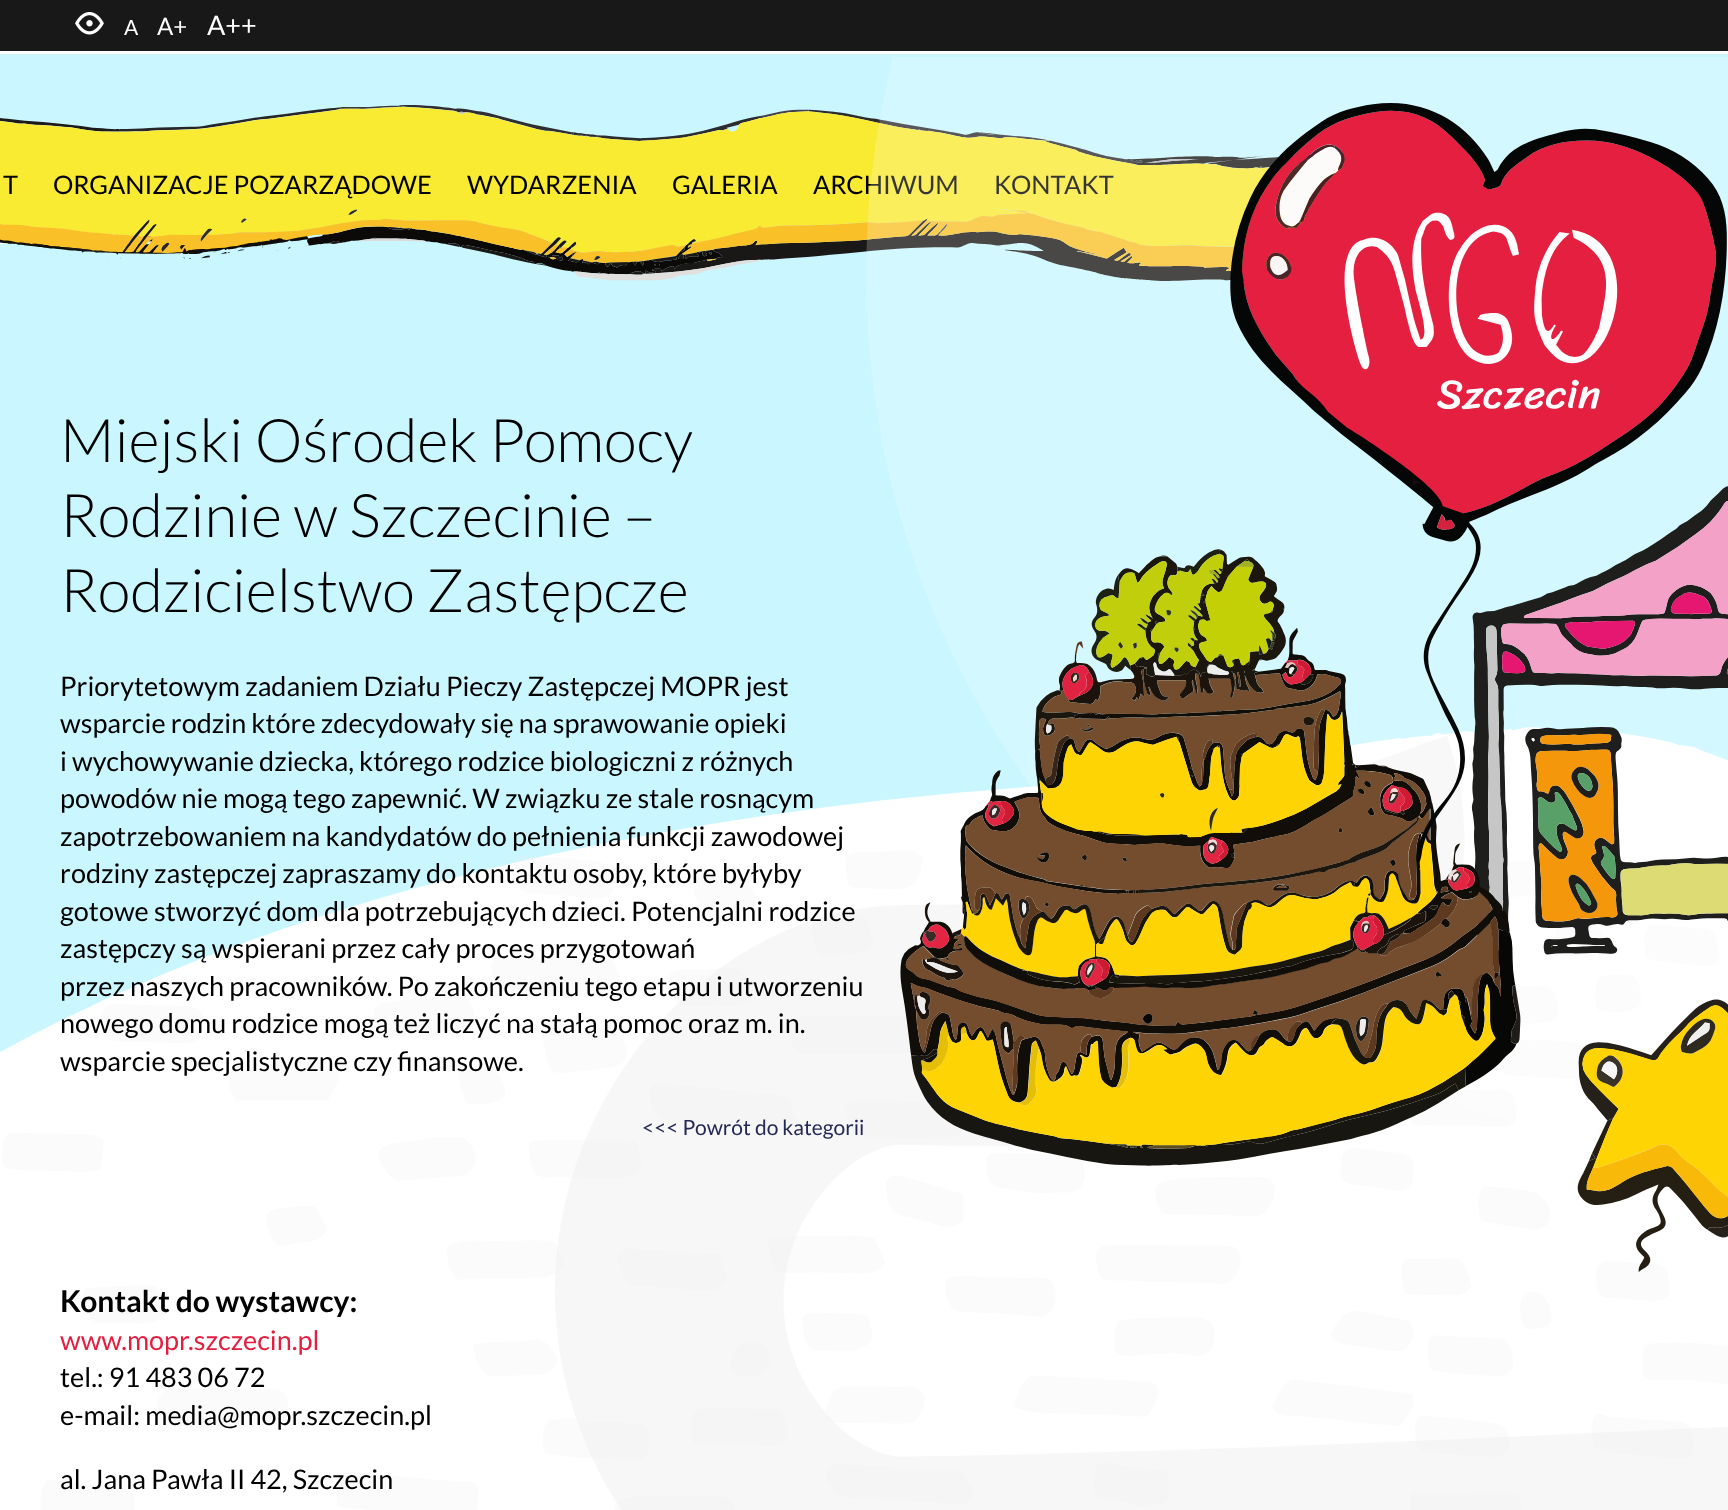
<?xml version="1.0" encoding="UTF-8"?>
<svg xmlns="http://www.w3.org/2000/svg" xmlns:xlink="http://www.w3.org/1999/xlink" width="1728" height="1510">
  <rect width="100%" height="100%" fill="#c9f6ff" />
  <image x="0" y="194" width="1728" height="1316" xlink:href="image1.png" />
  <rect width="1728" height="51" fill="#181818" />
  <rect y="51" width="1728" height="3" fill="#ffffff" />
  <image x="75" y="12" width="29" height="23" xlink:href="image2.png" />
  <image x="0" y="105" width="1345" height="177" xlink:href="image3.png" />
  <text x="124" y="35" style="font-family: Lato; font-size: 21px; fill: #ffffff">A</text>
  <text x="157" y="35" style="font-family: Lato; font-size: 24px; fill: #ffffff">A+</text>
  <text x="207" y="35" style="font-family: Lato; font-size: 27px; fill: #ffffff">A++</text>
  <text x="3" y="194" style="font-family: Lato; font-size: 25.5px; fill: #000000">T</text>
  <text x="53" y="194" style="font-family: Lato; font-size: 25.5px; fill: #000000">ORGANIZACJE POZARZĄDOWE</text>
  <text x="467" y="194" style="font-family: Lato; font-size: 25.5px; fill: #000000">WYDARZENIA</text>
  <text x="672" y="194" style="font-family: Lato; font-size: 25.5px; fill: #000000">GALERIA</text>
  <text x="813" y="194" style="font-family: Lato; font-size: 25.5px; fill: #000000">ARCHIWUM</text>
  <text x="994" y="194" style="font-family: Lato; font-size: 25.5px; fill: #000000">KONTAKT</text>
  <image x="866" y="57" width="862" height="1215" xlink:href="image5.png" />
  <image x="1230" y="103" width="497" height="760" xlink:href="image4.png" />
  <text x="60" y="462" style="font-family: Lato; font-size: 60px; font-weight: 300; fill: #000000">Miejski Ośrodek Pomocy</text>
  <text x="60" y="537" style="font-family: Lato; font-size: 60px; font-weight: 300; fill: #000000">Rodzinie w Szczecinie –</text>
  <text x="60" y="612" style="font-family: Lato; font-size: 60px; font-weight: 300; fill: #000000">Rodzicielstwo Zastępcze</text>
  <text x="60" y="696" style="font-family: Lato; font-size: 27px; fill: #000000">Priorytetowym zadaniem Działu Pieczy Zastępczej MOPR jest</text>
  <text x="60" y="733" style="font-family: Lato; font-size: 27px; fill: #000000">wsparcie rodzin które zdecydowały się na sprawowanie opieki</text>
  <text x="60" y="771" style="font-family: Lato; font-size: 27px; fill: #000000">i wychowywanie dziecka, którego rodzice biologiczni z różnych</text>
  <text x="60" y="808" style="font-family: Lato; font-size: 27px; fill: #000000">powodów nie mogą tego zapewnić. W związku ze stale rosnącym</text>
  <text x="60" y="846" style="font-family: Lato; font-size: 27px; fill: #000000">zapotrzebowaniem na kandydatów do pełnienia funkcji zawodowej</text>
  <text x="60" y="883" style="font-family: Lato; font-size: 27px; fill: #000000">rodziny zastępczej zapraszamy do kontaktu osoby, które byłyby</text>
  <text x="60" y="921" style="font-family: Lato; font-size: 27px; fill: #000000">gotowe stworzyć dom dla potrzebujących dzieci. Potencjalni rodzice</text>
  <text x="60" y="958" style="font-family: Lato; font-size: 27px; fill: #000000">zastępczy są wspierani przez cały proces przygotowań</text>
  <text x="60" y="996" style="font-family: Lato; font-size: 27px; fill: #000000">przez naszych pracowników. Po zakończeniu tego etapu i utworzeniu</text>
  <text x="60" y="1033" style="font-family: Lato; font-size: 27px; fill: #000000">nowego domu rodzice mogą też liczyć na stałą pomoc oraz m. in.</text>
  <text x="60" y="1071" style="font-family: Lato; font-size: 27px; fill: #000000">wsparcie specjalistyczne czy finansowe.</text>
  <text x="642" y="1135" style="font-family: Lato; font-size: 21px; fill: #252956">&lt;&lt;&lt; Powrót do kategorii</text>
  <text x="60" y="1312" style="font-family: Lato; font-size: 30px; font-weight: bold; fill: #000000">Kontakt do wystawcy:</text>
  <text x="60" y="1350" style="font-family: Lato; font-size: 27px; fill: #e41e3e">www.mopr.szczecin.pl</text>
  <text x="60" y="1387" style="font-family: Lato; font-size: 27px; fill: #000000">tel.: 91 483 06 72</text>
  <text x="60" y="1425" style="font-family: Lato; font-size: 27px; fill: #000000">e-mail: media@mopr.szczecin.pl</text>
  <text x="60" y="1489" style="font-family: Lato; font-size: 27px; fill: #000000">al. Jana Pawła II 42, Szczecin</text>
</svg>
